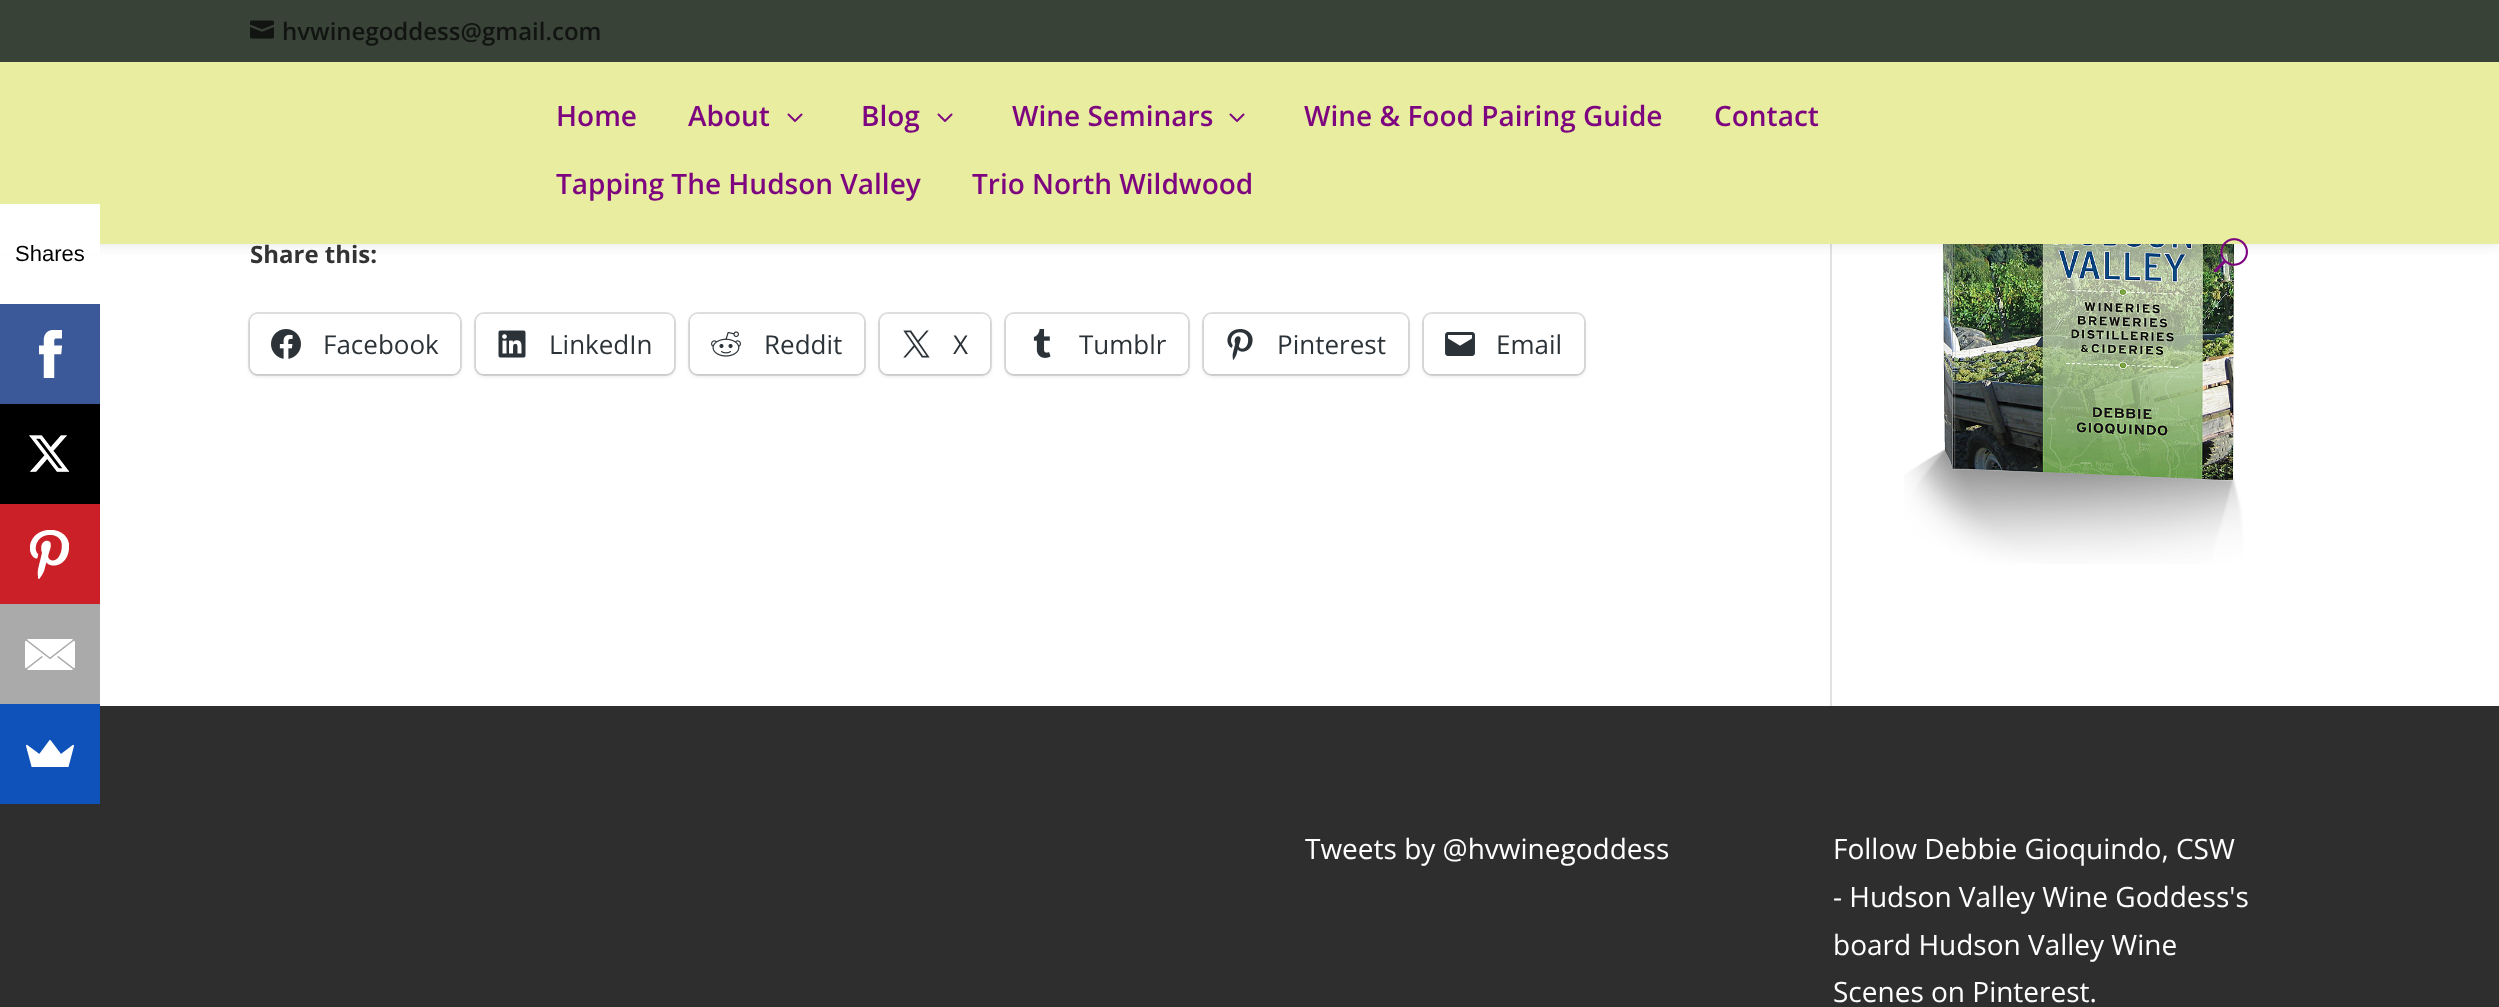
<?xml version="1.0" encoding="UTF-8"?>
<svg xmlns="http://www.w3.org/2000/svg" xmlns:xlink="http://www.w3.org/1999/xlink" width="2499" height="1007">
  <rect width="100%" height="100%" fill="#ffffff" />
  <image x="1904" y="244" width="339" height="320" xlink:href="image16.png" />
  <rect x="1830" y="244" width="2" height="462" fill="#e2e2e2" />
  <rect y="62" width="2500" height="182" fill="#000000" fill-opacity="0.1" filter="blur(7px)" />
  <rect y="62" width="2499" height="182" fill="#e9ed9f" />
  <rect y="204" width="100" height="49" fill="#ffffff" />
  <rect y="304" width="100" height="100" fill="#3b5998" />
  <image x="39" y="330" width="23" height="48" xlink:href="image1.png" />
  <rect y="404" width="100" height="100" fill="#000000" />
  <image x="29" y="435" width="40" height="37" xlink:href="image2.png" />
  <rect y="504" width="100" height="100" fill="#cb2027" />
  <image x="30" y="530" width="39" height="49" xlink:href="image3.png" />
  <rect y="604" width="100" height="100" fill="#aaaaaa" />
  <image x="25" y="639" width="50" height="31" xlink:href="image4.png" />
  <rect y="706" width="2499" height="301" fill="#2e2e2e" />
  <rect y="704" width="100" height="100" fill="#0f52ba" />
  <image x="26" y="740" width="48" height="27" xlink:href="image5.png" />
  <rect width="2499" height="62" fill="#384237" />
  <image x="250" y="20" width="24" height="19" xlink:href="image6.png" />
  <image x="787" y="113" width="16" height="9" xlink:href="image7.png" />
  <image x="937" y="113" width="16" height="9" xlink:href="image7.png" />
  <image x="1229" y="113" width="16" height="9" xlink:href="image7.png" />
  <image x="2213" y="238" width="35" height="35" xlink:href="image8.png" />
  <rect x="249" y="313" width="212" height="62" rx="9" fill="none" stroke="#e0e0e0" stroke-width="2" />
  <rect x="250" y="316" width="210" height="60" rx="8" fill="#000000" fill-opacity="0.12" filter="blur(2px)" />
  <rect x="250" y="314" width="210" height="60" rx="8" fill="#ffffff" />
  <image x="271" y="329" width="30" height="30" xlink:href="image9.png" />
  <rect x="475" y="313" width="200" height="62" rx="9" fill="none" stroke="#e0e0e0" stroke-width="2" />
  <rect x="476" y="316" width="198" height="60" rx="8" fill="#000000" fill-opacity="0.12" filter="blur(2px)" />
  <rect x="476" y="314" width="198" height="60" rx="8" fill="#ffffff" />
  <image x="498" y="330" width="28" height="28" xlink:href="image10.png" />
  <rect x="689" y="313" width="176" height="62" rx="9" fill="none" stroke="#e0e0e0" stroke-width="2" />
  <rect x="690" y="316" width="174" height="60" rx="8" fill="#000000" fill-opacity="0.12" filter="blur(2px)" />
  <rect x="690" y="314" width="174" height="60" rx="8" fill="#ffffff" />
  <image x="711" y="331" width="30" height="26" xlink:href="image11.png" />
  <rect x="879" y="313" width="112" height="62" rx="9" fill="none" stroke="#e0e0e0" stroke-width="2" />
  <rect x="880" y="316" width="110" height="60" rx="8" fill="#000000" fill-opacity="0.12" filter="blur(2px)" />
  <rect x="880" y="314" width="110" height="60" rx="8" fill="#ffffff" />
  <image x="903" y="330" width="27" height="28" xlink:href="image12.png" />
  <rect x="1005" y="313" width="184" height="62" rx="9" fill="none" stroke="#e0e0e0" stroke-width="2" />
  <rect x="1006" y="316" width="182" height="60" rx="8" fill="#000000" fill-opacity="0.12" filter="blur(2px)" />
  <rect x="1006" y="314" width="182" height="60" rx="8" fill="#ffffff" />
  <image x="1033" y="329" width="18" height="29" xlink:href="image13.png" />
  <rect x="1203" y="313" width="206" height="62" rx="9" fill="none" stroke="#e0e0e0" stroke-width="2" />
  <rect x="1204" y="316" width="204" height="60" rx="8" fill="#000000" fill-opacity="0.12" filter="blur(2px)" />
  <rect x="1204" y="314" width="204" height="60" rx="8" fill="#ffffff" />
  <image x="1227" y="329" width="26" height="32" xlink:href="image14.png" />
  <rect x="1423" y="313" width="162" height="62" rx="9" fill="none" stroke="#e0e0e0" stroke-width="2" />
  <rect x="1424" y="316" width="160" height="60" rx="8" fill="#000000" fill-opacity="0.12" filter="blur(2px)" />
  <rect x="1424" y="314" width="160" height="60" rx="8" fill="#ffffff" />
  <image x="1445" y="332" width="30" height="24" xlink:href="image15.png" />
  <text x="15" y="261" style="font-family: Liberation Sans; font-size: 22px; fill: #000000">Shares</text>
  <text x="282" y="40" style="font-family: Open Sans; font-size: 24px; font-weight: 600; fill: #111411">hvwinegoddess@gmail.com</text>
  <text x="556" y="126" style="font-family: Open Sans; font-size: 28px; font-weight: 600; fill: #7d057f">Home</text>
  <text x="688" y="126" style="font-family: Open Sans; font-size: 28px; font-weight: 600; fill: #7d057f">About</text>
  <text x="861" y="126" style="font-family: Open Sans; font-size: 28px; font-weight: 600; fill: #7d057f">Blog</text>
  <text x="1012" y="126" style="font-family: Open Sans; font-size: 28px; font-weight: 600; fill: #7d057f">Wine Seminars</text>
  <text x="1304" y="126" style="font-family: Open Sans; font-size: 28px; font-weight: 600; fill: #7d057f">Wine &amp; Food Pairing Guide</text>
  <text x="1714" y="126" style="font-family: Open Sans; font-size: 28px; font-weight: 600; fill: #7d057f">Contact</text>
  <text x="556" y="194" style="font-family: Open Sans; font-size: 28px; font-weight: 600; fill: #7d057f">Tapping The Hudson Valley</text>
  <text x="972" y="194" style="font-family: Open Sans; font-size: 28px; font-weight: 600; fill: #7d057f">Trio North Wildwood</text>
  <text x="250" y="263" style="font-family: Open Sans; font-size: 24px; font-weight: bold; fill: #333333">Share this:</text>
  <text x="323" y="354" style="font-family: Open Sans; font-size: 26px; fill: #2c3338">Facebook</text>
  <text x="549" y="354" style="font-family: Open Sans; font-size: 26px; fill: #2c3338">LinkedIn</text>
  <text x="764" y="354" style="font-family: Open Sans; font-size: 26px; fill: #2c3338">Reddit</text>
  <text x="953" y="354" style="font-family: Open Sans; font-size: 26px; fill: #2c3338">X</text>
  <text x="1079" y="354" style="font-family: Open Sans; font-size: 26px; fill: #2c3338">Tumblr</text>
  <text x="1277" y="354" style="font-family: Open Sans; font-size: 26px; fill: #2c3338">Pinterest</text>
  <text x="1496" y="354" style="font-family: Open Sans; font-size: 26px; fill: #2c3338">Email</text>
  <text x="1305" y="859" style="font-family: Open Sans; font-size: 28px; fill: #ffffff">Tweets by @hvwinegoddess</text>
  <text x="1833" y="859" style="font-family: Open Sans; font-size: 28px; fill: #ffffff">Follow Debbie Gioquindo, CSW</text>
  <text x="1833" y="907" style="font-family: Open Sans; font-size: 28px; fill: #ffffff">- Hudson Valley Wine Goddess's</text>
  <text x="1833" y="955" style="font-family: Open Sans; font-size: 28px; fill: #ffffff">board Hudson Valley Wine</text>
  <text x="1833" y="1002" style="font-family: Open Sans; font-size: 28px; fill: #ffffff">Scenes on Pinterest.</text>
</svg>
